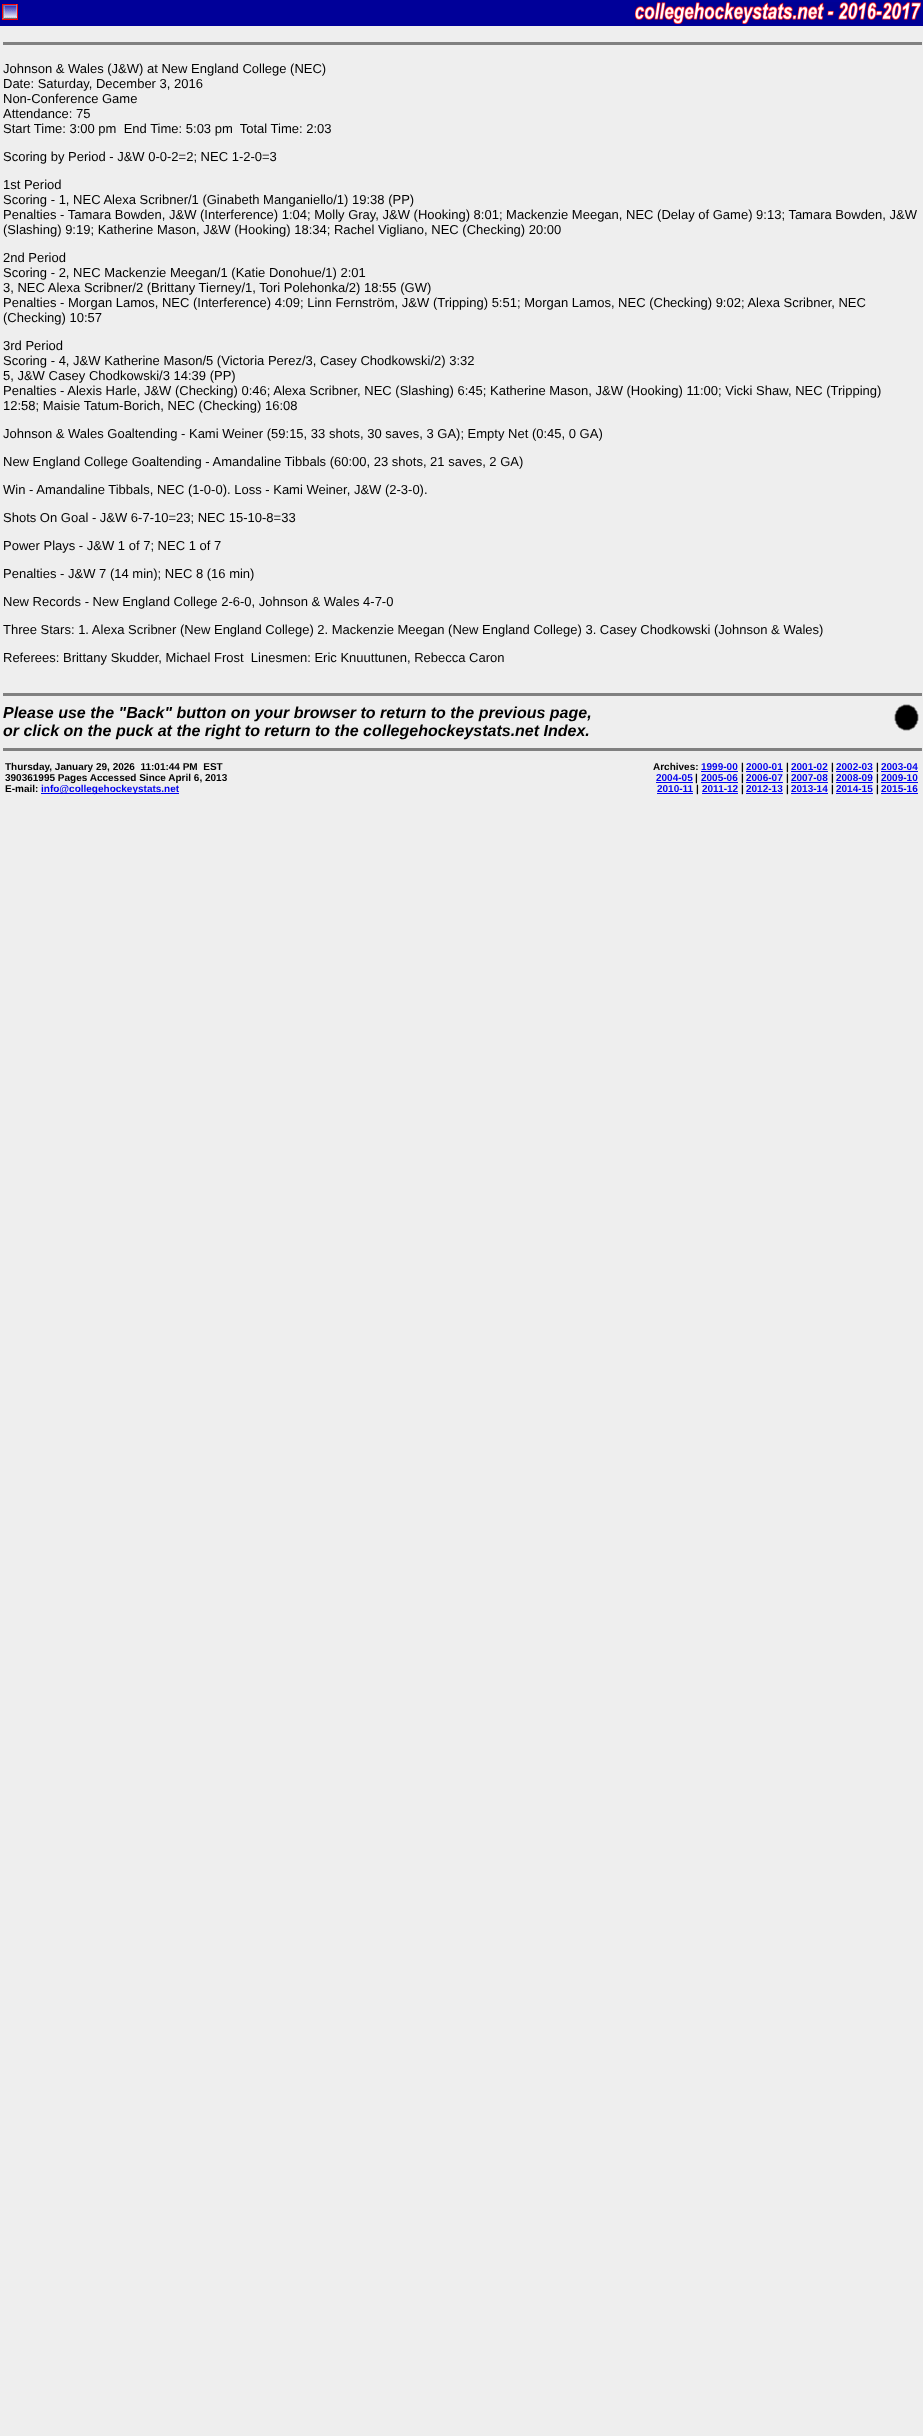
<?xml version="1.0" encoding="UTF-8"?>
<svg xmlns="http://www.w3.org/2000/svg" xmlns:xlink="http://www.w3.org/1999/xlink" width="923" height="2436">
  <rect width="100%" height="100%" fill="#eeeeee" />
  <rect width="923" height="26" fill="#000099" />
  <image x="2" y="4" width="16" height="16" xlink:href="image1.png" />
  <image x="635" y="2" width="286" height="22" xlink:href="image2.png" />
  <rect x="3" y="42" width="919" height="3" fill="#808080" />
  <rect x="3" y="693" width="919" height="3" fill="#808080" />
  <image x="894" y="704" width="25" height="27" xlink:href="image3.png" />
  <rect x="3" y="748" width="919" height="3" fill="#808080" />
  <rect x="41" y="793" width="138" height="1" fill="#0000ee" />
  <rect x="701" y="771" width="37" height="1" fill="#0000ee" />
  <rect x="746" y="771" width="37" height="1" fill="#0000ee" />
  <rect x="791" y="771" width="37" height="1" fill="#0000ee" />
  <rect x="836" y="771" width="37" height="1" fill="#0000ee" />
  <rect x="881" y="771" width="37" height="1" fill="#0000ee" />
  <rect x="656" y="782" width="37" height="1" fill="#0000ee" />
  <rect x="701" y="782" width="37" height="1" fill="#0000ee" />
  <rect x="746" y="782" width="37" height="1" fill="#0000ee" />
  <rect x="791" y="782" width="37" height="1" fill="#0000ee" />
  <rect x="836" y="782" width="37" height="1" fill="#0000ee" />
  <rect x="881" y="782" width="37" height="1" fill="#0000ee" />
  <rect x="657" y="793" width="36" height="1" fill="#0000ee" />
  <rect x="702" y="793" width="36" height="1" fill="#0000ee" />
  <rect x="746" y="793" width="37" height="1" fill="#0000ee" />
  <rect x="791" y="793" width="37" height="1" fill="#0000ee" />
  <rect x="836" y="793" width="37" height="1" fill="#0000ee" />
  <rect x="881" y="793" width="37" height="1" fill="#0000ee" />
  <text x="3" y="73" style="font-family: Liberation Sans; font-size: 13px; fill: #000000">Johnson &amp; Wales (J&amp;W) at New England College (NEC)</text>
  <text x="3" y="88" style="font-family: Liberation Sans; font-size: 13px; fill: #000000">Date: Saturday, December 3, 2016</text>
  <text x="3" y="103" style="font-family: Liberation Sans; font-size: 13px; fill: #000000">Non-Conference Game</text>
  <text x="3" y="118" style="font-family: Liberation Sans; font-size: 13px; fill: #000000">Attendance: 75</text>
  <text x="3" y="133" style="font-family: Liberation Sans; font-size: 13px; fill: #000000" xml:space="preserve">Start Time: 3:00 pm  End Time: 5:03 pm  Total Time: 2:03</text>
  <text x="3" y="161" style="font-family: Liberation Sans; font-size: 13px; fill: #000000">Scoring by Period - J&amp;W 0-0-2=2; NEC 1-2-0=3</text>
  <text x="3" y="189" style="font-family: Liberation Sans; font-size: 13px; fill: #000000">1st Period</text>
  <text x="3" y="204" style="font-family: Liberation Sans; font-size: 13px; fill: #000000">Scoring - 1, NEC Alexa Scribner/1 (Ginabeth Manganiello/1) 19:38 (PP)</text>
  <text x="3" y="219" style="font-family: Liberation Sans; font-size: 13px; fill: #000000">Penalties - Tamara Bowden, J&amp;W (Interference) 1:04; Molly Gray, J&amp;W (Hooking) 8:01; Mackenzie Meegan, NEC (Delay of Game) 9:13; Tamara Bowden, J&amp;W</text>
  <text x="3" y="234" style="font-family: Liberation Sans; font-size: 13px; fill: #000000">(Slashing) 9:19; Katherine Mason, J&amp;W (Hooking) 18:34; Rachel Vigliano, NEC (Checking) 20:00</text>
  <text x="3" y="262" style="font-family: Liberation Sans; font-size: 13px; fill: #000000">2nd Period</text>
  <text x="3" y="277" style="font-family: Liberation Sans; font-size: 13px; fill: #000000">Scoring - 2, NEC Mackenzie Meegan/1 (Katie Donohue/1) 2:01</text>
  <text x="3" y="292" style="font-family: Liberation Sans; font-size: 13px; fill: #000000">3, NEC Alexa Scribner/2 (Brittany Tierney/1, Tori Polehonka/2) 18:55 (GW)</text>
  <text x="3" y="307" style="font-family: Liberation Sans; font-size: 13px; fill: #000000">Penalties - Morgan Lamos, NEC (Interference) 4:09; Linn Fernström, J&amp;W (Tripping) 5:51; Morgan Lamos, NEC (Checking) 9:02; Alexa Scribner, NEC</text>
  <text x="3" y="322" style="font-family: Liberation Sans; font-size: 13px; fill: #000000">(Checking) 10:57</text>
  <text x="3" y="350" style="font-family: Liberation Sans; font-size: 13px; fill: #000000">3rd Period</text>
  <text x="3" y="365" style="font-family: Liberation Sans; font-size: 13px; fill: #000000">Scoring - 4, J&amp;W Katherine Mason/5 (Victoria Perez/3, Casey Chodkowski/2) 3:32</text>
  <text x="3" y="380" style="font-family: Liberation Sans; font-size: 13px; fill: #000000">5, J&amp;W Casey Chodkowski/3 14:39 (PP)</text>
  <text x="3" y="395" style="font-family: Liberation Sans; font-size: 13px; fill: #000000">Penalties - Alexis Harle, J&amp;W (Checking) 0:46; Alexa Scribner, NEC (Slashing) 6:45; Katherine Mason, J&amp;W (Hooking) 11:00; Vicki Shaw, NEC (Tripping)</text>
  <text x="3" y="410" style="font-family: Liberation Sans; font-size: 13px; fill: #000000">12:58; Maisie Tatum-Borich, NEC (Checking) 16:08</text>
  <text x="3" y="438" style="font-family: Liberation Sans; font-size: 13px; fill: #000000">Johnson &amp; Wales Goaltending - Kami Weiner (59:15, 33 shots, 30 saves, 3 GA); Empty Net (0:45, 0 GA)</text>
  <text x="3" y="466" style="font-family: Liberation Sans; font-size: 13px; fill: #000000">New England College Goaltending - Amandaline Tibbals (60:00, 23 shots, 21 saves, 2 GA)</text>
  <text x="3" y="494" style="font-family: Liberation Sans; font-size: 13px; fill: #000000">Win - Amandaline Tibbals, NEC (1-0-0). Loss - Kami Weiner, J&amp;W (2-3-0).</text>
  <text x="3" y="522" style="font-family: Liberation Sans; font-size: 13px; fill: #000000">Shots On Goal - J&amp;W 6-7-10=23; NEC 15-10-8=33</text>
  <text x="3" y="550" style="font-family: Liberation Sans; font-size: 13px; fill: #000000">Power Plays - J&amp;W 1 of 7; NEC 1 of 7</text>
  <text x="3" y="578" style="font-family: Liberation Sans; font-size: 13px; fill: #000000">Penalties - J&amp;W 7 (14 min); NEC 8 (16 min)</text>
  <text x="3" y="606" style="font-family: Liberation Sans; font-size: 13px; fill: #000000">New Records - New England College 2-6-0, Johnson &amp; Wales 4-7-0</text>
  <text x="3" y="634" style="font-family: Liberation Sans; font-size: 13px; fill: #000000">Three Stars: 1. Alexa Scribner (New England College) 2. Mackenzie Meegan (New England College) 3. Casey Chodkowski (Johnson &amp; Wales)</text>
  <text x="3" y="662" style="font-family: Liberation Sans; font-size: 13px; fill: #000000" xml:space="preserve">Referees: Brittany Skudder, Michael Frost  Linesmen: Eric Knuuttunen, Rebecca Caron</text>
  <text x="3" y="718" style="font-family: Liberation Sans; font-size: 16px; font-weight: bold; font-style: italic; fill: #000000">Please use the "Back" button on your browser to return to the previous page,</text>
  <text x="3" y="736" style="font-family: Liberation Sans; font-size: 16px; font-weight: bold; font-style: italic; fill: #000000">or click on the puck at the right to return to the collegehockeystats.net Index.</text>
  <text x="5" y="770" style="font-family: Liberation Sans; font-size: 10px; font-weight: bold; fill: #000000" xml:space="preserve">Thursday, January 29, 2026  11:01:44 PM  EST</text>
  <text x="5" y="781" style="font-family: Liberation Sans; font-size: 10px; font-weight: bold; fill: #000000">390361995 Pages Accessed Since April 6, 2013</text>
  <text x="5" y="792" style="font-family: Liberation Sans; font-size: 10px; font-weight: bold; fill: #000000">E-mail:</text>
  <text x="41" y="792" style="font-family: Liberation Sans; font-size: 10px; font-weight: bold; fill: #0000ee">info@collegehockeystats.net</text>
  <text x="653" y="770" style="font-family: Liberation Sans; font-size: 10px; font-weight: bold; fill: #000000">Archives:</text>
  <text x="701" y="770" style="font-family: Liberation Sans; font-size: 10px; font-weight: bold; fill: #0000ee">1999-00</text>
  <text x="741" y="770" style="font-family: Liberation Sans; font-size: 10px; font-weight: bold; fill: #000000">|</text>
  <text x="746" y="770" style="font-family: Liberation Sans; font-size: 10px; font-weight: bold; fill: #0000ee">2000-01</text>
  <text x="786" y="770" style="font-family: Liberation Sans; font-size: 10px; font-weight: bold; fill: #000000">|</text>
  <text x="791" y="770" style="font-family: Liberation Sans; font-size: 10px; font-weight: bold; fill: #0000ee">2001-02</text>
  <text x="831" y="770" style="font-family: Liberation Sans; font-size: 10px; font-weight: bold; fill: #000000">|</text>
  <text x="836" y="770" style="font-family: Liberation Sans; font-size: 10px; font-weight: bold; fill: #0000ee">2002-03</text>
  <text x="876" y="770" style="font-family: Liberation Sans; font-size: 10px; font-weight: bold; fill: #000000">|</text>
  <text x="881" y="770" style="font-family: Liberation Sans; font-size: 10px; font-weight: bold; fill: #0000ee">2003-04</text>
  <text x="656" y="781" style="font-family: Liberation Sans; font-size: 10px; font-weight: bold; fill: #0000ee">2004-05</text>
  <text x="695" y="781" style="font-family: Liberation Sans; font-size: 10px; font-weight: bold; fill: #000000">|</text>
  <text x="701" y="781" style="font-family: Liberation Sans; font-size: 10px; font-weight: bold; fill: #0000ee">2005-06</text>
  <text x="741" y="781" style="font-family: Liberation Sans; font-size: 10px; font-weight: bold; fill: #000000">|</text>
  <text x="746" y="781" style="font-family: Liberation Sans; font-size: 10px; font-weight: bold; fill: #0000ee">2006-07</text>
  <text x="786" y="781" style="font-family: Liberation Sans; font-size: 10px; font-weight: bold; fill: #000000">|</text>
  <text x="791" y="781" style="font-family: Liberation Sans; font-size: 10px; font-weight: bold; fill: #0000ee">2007-08</text>
  <text x="831" y="781" style="font-family: Liberation Sans; font-size: 10px; font-weight: bold; fill: #000000">|</text>
  <text x="836" y="781" style="font-family: Liberation Sans; font-size: 10px; font-weight: bold; fill: #0000ee">2008-09</text>
  <text x="876" y="781" style="font-family: Liberation Sans; font-size: 10px; font-weight: bold; fill: #000000">|</text>
  <text x="881" y="781" style="font-family: Liberation Sans; font-size: 10px; font-weight: bold; fill: #0000ee">2009-10</text>
  <text x="657" y="792" style="font-family: Liberation Sans; font-size: 10px; font-weight: bold; fill: #0000ee">2010-11</text>
  <text x="696" y="792" style="font-family: Liberation Sans; font-size: 10px; font-weight: bold; fill: #000000">|</text>
  <text x="702" y="792" style="font-family: Liberation Sans; font-size: 10px; font-weight: bold; fill: #0000ee">2011-12</text>
  <text x="741" y="792" style="font-family: Liberation Sans; font-size: 10px; font-weight: bold; fill: #000000">|</text>
  <text x="746" y="792" style="font-family: Liberation Sans; font-size: 10px; font-weight: bold; fill: #0000ee">2012-13</text>
  <text x="786" y="792" style="font-family: Liberation Sans; font-size: 10px; font-weight: bold; fill: #000000">|</text>
  <text x="791" y="792" style="font-family: Liberation Sans; font-size: 10px; font-weight: bold; fill: #0000ee">2013-14</text>
  <text x="831" y="792" style="font-family: Liberation Sans; font-size: 10px; font-weight: bold; fill: #000000">|</text>
  <text x="836" y="792" style="font-family: Liberation Sans; font-size: 10px; font-weight: bold; fill: #0000ee">2014-15</text>
  <text x="876" y="792" style="font-family: Liberation Sans; font-size: 10px; font-weight: bold; fill: #000000">|</text>
  <text x="881" y="792" style="font-family: Liberation Sans; font-size: 10px; font-weight: bold; fill: #0000ee">2015-16</text>
</svg>
